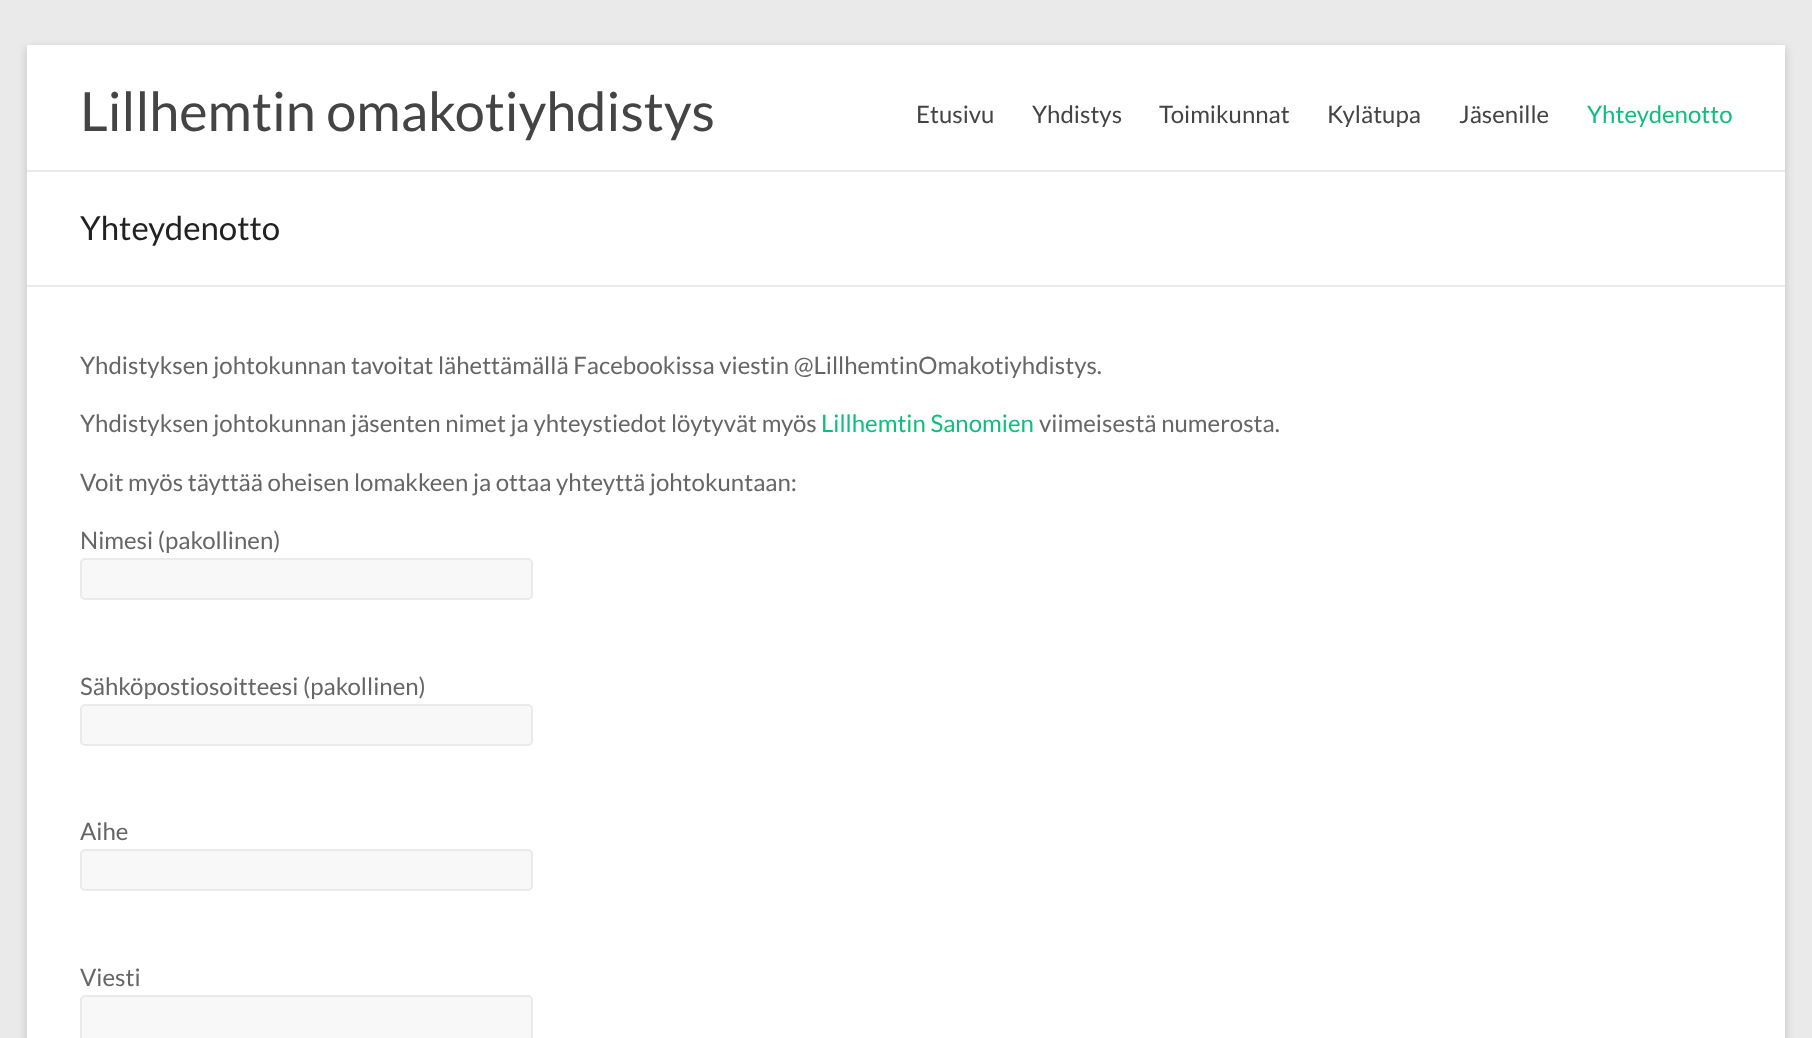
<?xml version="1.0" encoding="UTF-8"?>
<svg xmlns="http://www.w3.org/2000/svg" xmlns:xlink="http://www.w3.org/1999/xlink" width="1812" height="1038">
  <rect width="100%" height="100%" fill="#eaeaea" />
  <rect x="27" y="48" width="1758" height="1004" fill="#646464" fill-opacity="0.3" filter="blur(4.5px)" />
  <rect x="27" y="45" width="1758" height="993" fill="#ffffff" />
  <rect x="27" y="170" width="1758" height="2" fill="#eaeaea" />
  <rect x="27" y="285" width="1758" height="2" fill="#eaeaea" />
  <rect x="81" y="559" width="451" height="40" rx="4" fill="#f8f8f8" stroke="#eaeaea" stroke-width="2" />
  <rect x="81" y="705" width="451" height="40" rx="4" fill="#f8f8f8" stroke="#eaeaea" stroke-width="2" />
  <rect x="81" y="850" width="451" height="40" rx="4" fill="#f8f8f8" stroke="#eaeaea" stroke-width="2" />
  <rect x="81" y="996" width="451" height="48" rx="4" fill="#f8f8f8" stroke="#eaeaea" stroke-width="2" />
  <text x="80" y="131" style="font-family: Lato; font-size: 54px; fill: #444444">Lillhemtin omakotiyhdistys</text>
  <text x="916" y="123" style="font-family: Lato; font-size: 24px; fill: #444444">Etusivu</text>
  <text x="1032" y="123" style="font-family: Lato; font-size: 24px; fill: #444444">Yhdistys</text>
  <text x="1159" y="123" style="font-family: Lato; font-size: 24px; fill: #444444">Toimikunnat</text>
  <text x="1327" y="123" style="font-family: Lato; font-size: 24px; fill: #444444">Kylätupa</text>
  <text x="1459" y="123" style="font-family: Lato; font-size: 24px; fill: #444444">Jäsenille</text>
  <text x="1587" y="123" style="font-family: Lato; font-size: 24px; fill: #0fbe7c">Yhteydenotto</text>
  <text x="80" y="240" style="font-family: Lato; font-size: 33px; fill: #222222">Yhteydenotto</text>
  <text x="80" y="374" style="font-family: Lato; font-size: 24px; fill: #666666">Yhdistyksen johtokunnan tavoitat lähettämällä Facebookissa viestin @LillhemtinOmakotiyhdistys.</text>
  <text x="80" y="432" style="font-family: Lato; font-size: 24px; fill: #666666">Yhdistyksen johtokunnan jäsenten nimet ja yhteystiedot löytyvät myös</text>
  <text x="821" y="432" style="font-family: Lato; font-size: 24px; fill: #0fbe7c">Lillhemtin Sanomien</text>
  <text x="1039" y="432" style="font-family: Lato; font-size: 24px; fill: #666666">viimeisestä numerosta.</text>
  <text x="80" y="491" style="font-family: Lato; font-size: 24px; fill: #666666">Voit myös täyttää oheisen lomakkeen ja ottaa yhteyttä johtokuntaan:</text>
  <text x="80" y="549" style="font-family: Lato; font-size: 24px; fill: #666666">Nimesi (pakollinen)</text>
  <text x="80" y="695" style="font-family: Lato; font-size: 24px; fill: #666666">Sähköpostiosoitteesi (pakollinen)</text>
  <text x="80" y="840" style="font-family: Lato; font-size: 24px; fill: #666666">Aihe</text>
  <text x="80" y="986" style="font-family: Lato; font-size: 24px; fill: #666666">Viesti</text>
</svg>
